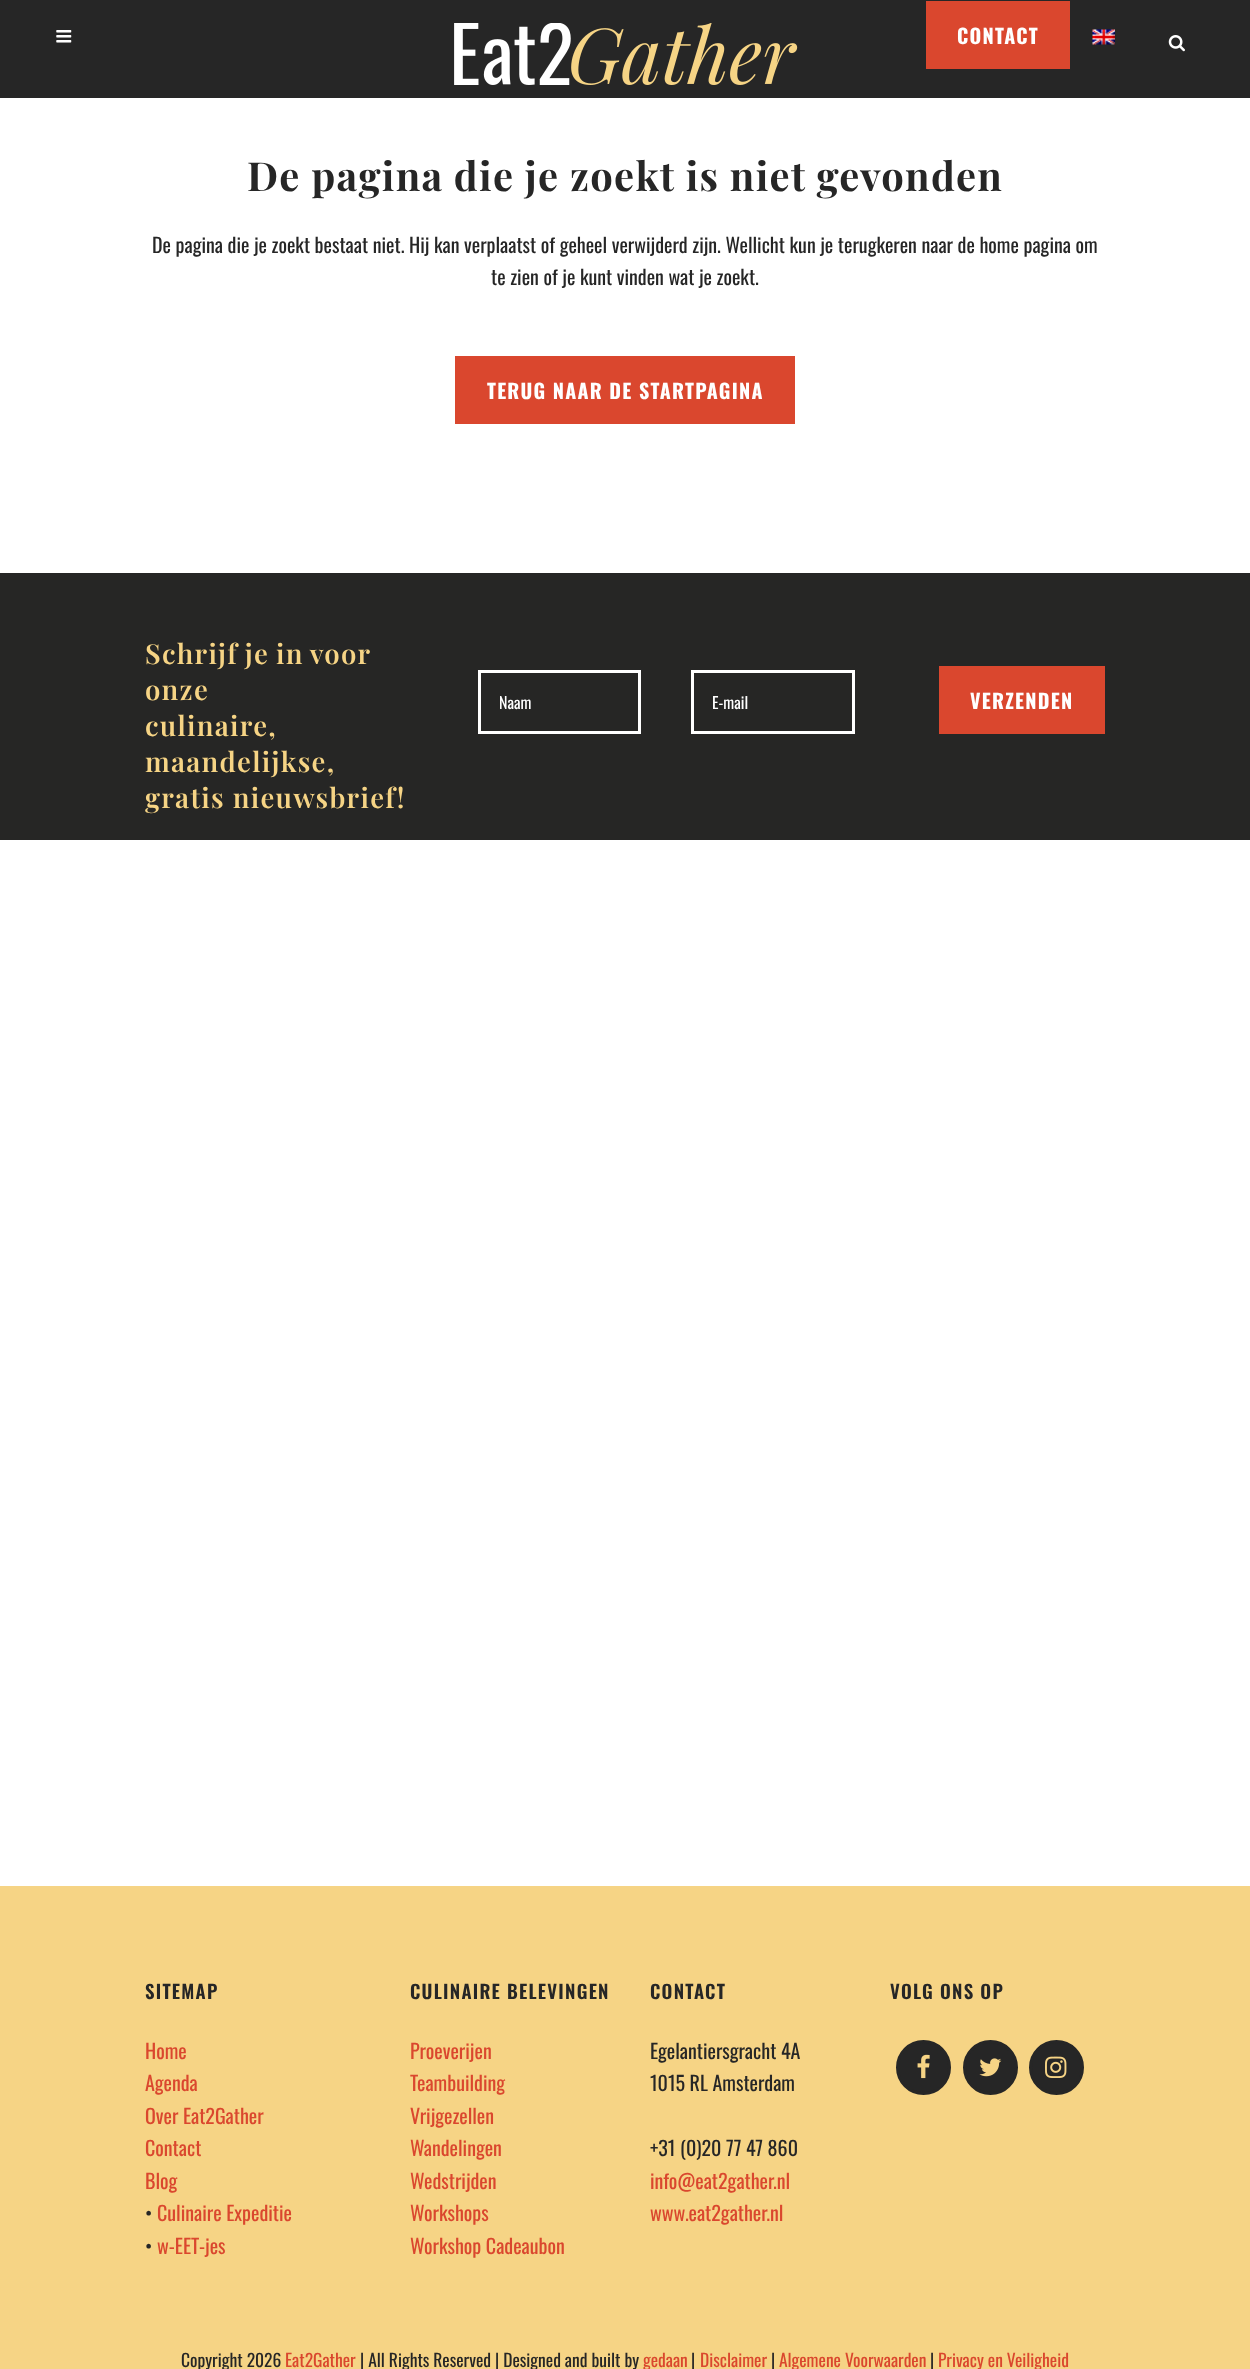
<?xml version="1.0" encoding="UTF-8"?>
<svg xmlns="http://www.w3.org/2000/svg" xmlns:xlink="http://www.w3.org/1999/xlink" width="1250" height="2369">
  <rect width="100%" height="100%" fill="#ffffff" />
  <rect width="1250" height="98" fill="#262626" />
  <image x="56" y="30" width="16" height="13" xlink:href="image1.png" />
  <image x="454" y="23" width="344" height="62" xlink:href="image2.png" />
  <rect x="926" y="1" width="144" height="68" fill="#da472e" />
  <image x="1092" y="29" width="23" height="16" xlink:href="image3.png" />
  <image x="1168" y="35" width="17" height="17" xlink:href="image4.png" />
  <rect x="455" y="356" width="340" height="68" fill="#da472e" />
  <rect y="573" width="1250" height="267" fill="#262625" />
  <rect x="479.5" y="671.5" width="160" height="61" fill="none" stroke="#ffffff" stroke-width="3" />
  <rect x="692.5" y="671.5" width="161" height="61" fill="none" stroke="#ffffff" stroke-width="3" />
  <rect x="939" y="666" width="166" height="68" fill="#da472e" />
  <rect y="1886" width="1250" height="483" fill="#f6d485" />
  <circle cx="923.5" cy="2067.5" r="26" fill="#262626" stroke="#262626" stroke-width="3" />
  <image x="917" y="2054" width="13" height="25" xlink:href="image5.png" />
  <circle cx="990.5" cy="2067.5" r="26" fill="#262626" stroke="#262626" stroke-width="3" />
  <image x="979" y="2058" width="23" height="19" xlink:href="image6.png" />
  <circle cx="1056.5" cy="2067.5" r="26" fill="#262626" stroke="#262626" stroke-width="3" />
  <image x="1045" y="2056" width="22" height="22" xlink:href="image7.png" />
  <text x="957" y="44" style="font-family: Oswald; font-size: 20px; font-weight: bold; letter-spacing: 1.25px; fill: #ffffff">CONTACT</text>
  <text x="247" y="191" style="font-family: Playfair Display; font-size: 40px; font-weight: bold; letter-spacing: 1.25px; fill: #262626">De pagina die je zoekt is niet gevonden</text>
  <text x="152" y="253" style="font-family: Oswald; font-size: 20px; fill: #262626">De pagina die je zoekt bestaat niet. Hij kan verplaatst of geheel verwijderd zijn. Wellicht kun je terugkeren naar de home pagina om</text>
  <text x="491" y="285" style="font-family: Oswald; font-size: 20px; fill: #262626">te zien of je kunt vinden wat je zoekt.</text>
  <text x="487" y="399" style="font-family: Oswald; font-size: 20px; font-weight: bold; letter-spacing: 1.25px; fill: #ffffff">TERUG NAAR DE STARTPAGINA</text>
  <text x="145" y="664" word-spacing="-1" style="font-family: Playfair Display; font-size: 27.5px; font-weight: 600; letter-spacing: 1.25px; fill: #f6d485">Schrijf je in voor</text>
  <text x="145" y="700" style="font-family: Playfair Display; font-size: 27.5px; font-weight: 600; letter-spacing: 1.25px; fill: #f6d485">onze</text>
  <text x="145" y="736" style="font-family: Playfair Display; font-size: 27.5px; font-weight: 600; letter-spacing: 1.25px; fill: #f6d485">culinaire,</text>
  <text x="145" y="772" style="font-family: Playfair Display; font-size: 27.5px; font-weight: 600; letter-spacing: 1.25px; fill: #f6d485">maandelijkse,</text>
  <text x="145" y="808" style="font-family: Playfair Display; font-size: 27.5px; font-weight: 600; letter-spacing: 1.25px; fill: #f6d485">gratis nieuwsbrief!</text>
  <text x="499" y="709" style="font-family: Oswald; font-size: 16px; fill: #ffffff">Naam</text>
  <text x="712" y="709" style="font-family: Oswald; font-size: 16px; fill: #ffffff">E-mail</text>
  <text x="970" y="709" style="font-family: Oswald; font-size: 20px; font-weight: bold; letter-spacing: 1.25px; fill: #ffffff">VERZENDEN</text>
  <text x="145" y="1999" style="font-family: Oswald; font-size: 18.75px; font-weight: 600; letter-spacing: 1.25px; fill: #262626">SITEMAP</text>
  <text x="145" y="2059" style="font-family: Oswald; font-size: 20px; fill: #da472e">Home</text>
  <text x="145" y="2091" style="font-family: Oswald; font-size: 20px; fill: #da472e">Agenda</text>
  <text x="145" y="2124" style="font-family: Oswald; font-size: 20px; fill: #da472e">Over Eat2Gather</text>
  <text x="145" y="2156" style="font-family: Oswald; font-size: 20px; fill: #da472e">Contact</text>
  <text x="145" y="2189" style="font-family: Oswald; font-size: 20px; fill: #da472e">Blog</text>
  <text x="145" y="2221" style="font-family: Oswald; font-size: 20px; fill: #262626">•</text>
  <text x="157" y="2221" style="font-family: Oswald; font-size: 20px; fill: #da472e">Culinaire Expeditie</text>
  <text x="145" y="2254" style="font-family: Oswald; font-size: 20px; fill: #262626">•</text>
  <text x="157" y="2254" style="font-family: Oswald; font-size: 20px; fill: #da472e">w-EET-jes</text>
  <text x="410" y="1999" style="font-family: Oswald; font-size: 18.75px; font-weight: 600; letter-spacing: 1.25px; fill: #262626">CULINAIRE BELEVINGEN</text>
  <text x="410" y="2059" style="font-family: Oswald; font-size: 20px; fill: #da472e">Proeverijen</text>
  <text x="410" y="2091" style="font-family: Oswald; font-size: 20px; fill: #da472e">Teambuilding</text>
  <text x="410" y="2124" style="font-family: Oswald; font-size: 20px; fill: #da472e">Vrijgezellen</text>
  <text x="410" y="2156" style="font-family: Oswald; font-size: 20px; fill: #da472e">Wandelingen</text>
  <text x="410" y="2189" style="font-family: Oswald; font-size: 20px; fill: #da472e">Wedstrijden</text>
  <text x="410" y="2221" style="font-family: Oswald; font-size: 20px; fill: #da472e">Workshops</text>
  <text x="410" y="2254" style="font-family: Oswald; font-size: 20px; fill: #da472e">Workshop Cadeaubon</text>
  <text x="650" y="1999" style="font-family: Oswald; font-size: 18.75px; font-weight: 600; letter-spacing: 1.25px; fill: #262626">CONTACT</text>
  <text x="650" y="2059" style="font-family: Oswald; font-size: 20px; fill: #262626">Egelantiersgracht 4A</text>
  <text x="650" y="2091" style="font-family: Oswald; font-size: 20px; fill: #262626">1015 RL Amsterdam</text>
  <text x="650" y="2156" style="font-family: Oswald; font-size: 20px; fill: #262626">+31 (0)20 77 47 860</text>
  <text x="650" y="2189" style="font-family: Oswald; font-size: 20px; fill: #da472e">info@eat2gather.nl</text>
  <text x="650" y="2221" style="font-family: Oswald; font-size: 20px; fill: #da472e">www.eat2gather.nl</text>
  <text x="890" y="1999" style="font-family: Oswald; font-size: 18.75px; font-weight: 600; letter-spacing: 1.25px; fill: #262626">VOLG ONS OP</text>
  <text x="181" y="2367" style="font-family: Oswald; font-size: 17.5px; fill: #262626">Copyright 2026</text>
  <text x="285" y="2367" style="font-family: Oswald; font-size: 17.5px; fill: #da472e">Eat2Gather</text>
  <text x="360" y="2367" style="font-family: Oswald; font-size: 17.5px; fill: #262626">| All Rights Reserved | Designed and built by</text>
  <text x="643" y="2367" style="font-family: Oswald; font-size: 17.5px; fill: #da472e">gedaan</text>
  <text x="691" y="2367" style="font-family: Oswald; font-size: 17.5px; fill: #262626">|</text>
  <text x="700" y="2367" style="font-family: Oswald; font-size: 17.5px; fill: #da472e">Disclaimer</text>
  <text x="771" y="2367" style="font-family: Oswald; font-size: 17.5px; fill: #262626">|</text>
  <text x="779" y="2367" style="font-family: Oswald; font-size: 17.5px; fill: #da472e">Algemene Voorwaarden</text>
  <text x="930" y="2367" style="font-family: Oswald; font-size: 17.5px; fill: #262626">|</text>
  <text x="938" y="2367" style="font-family: Oswald; font-size: 17.5px; fill: #da472e">Privacy en Veiligheid</text>
</svg>
